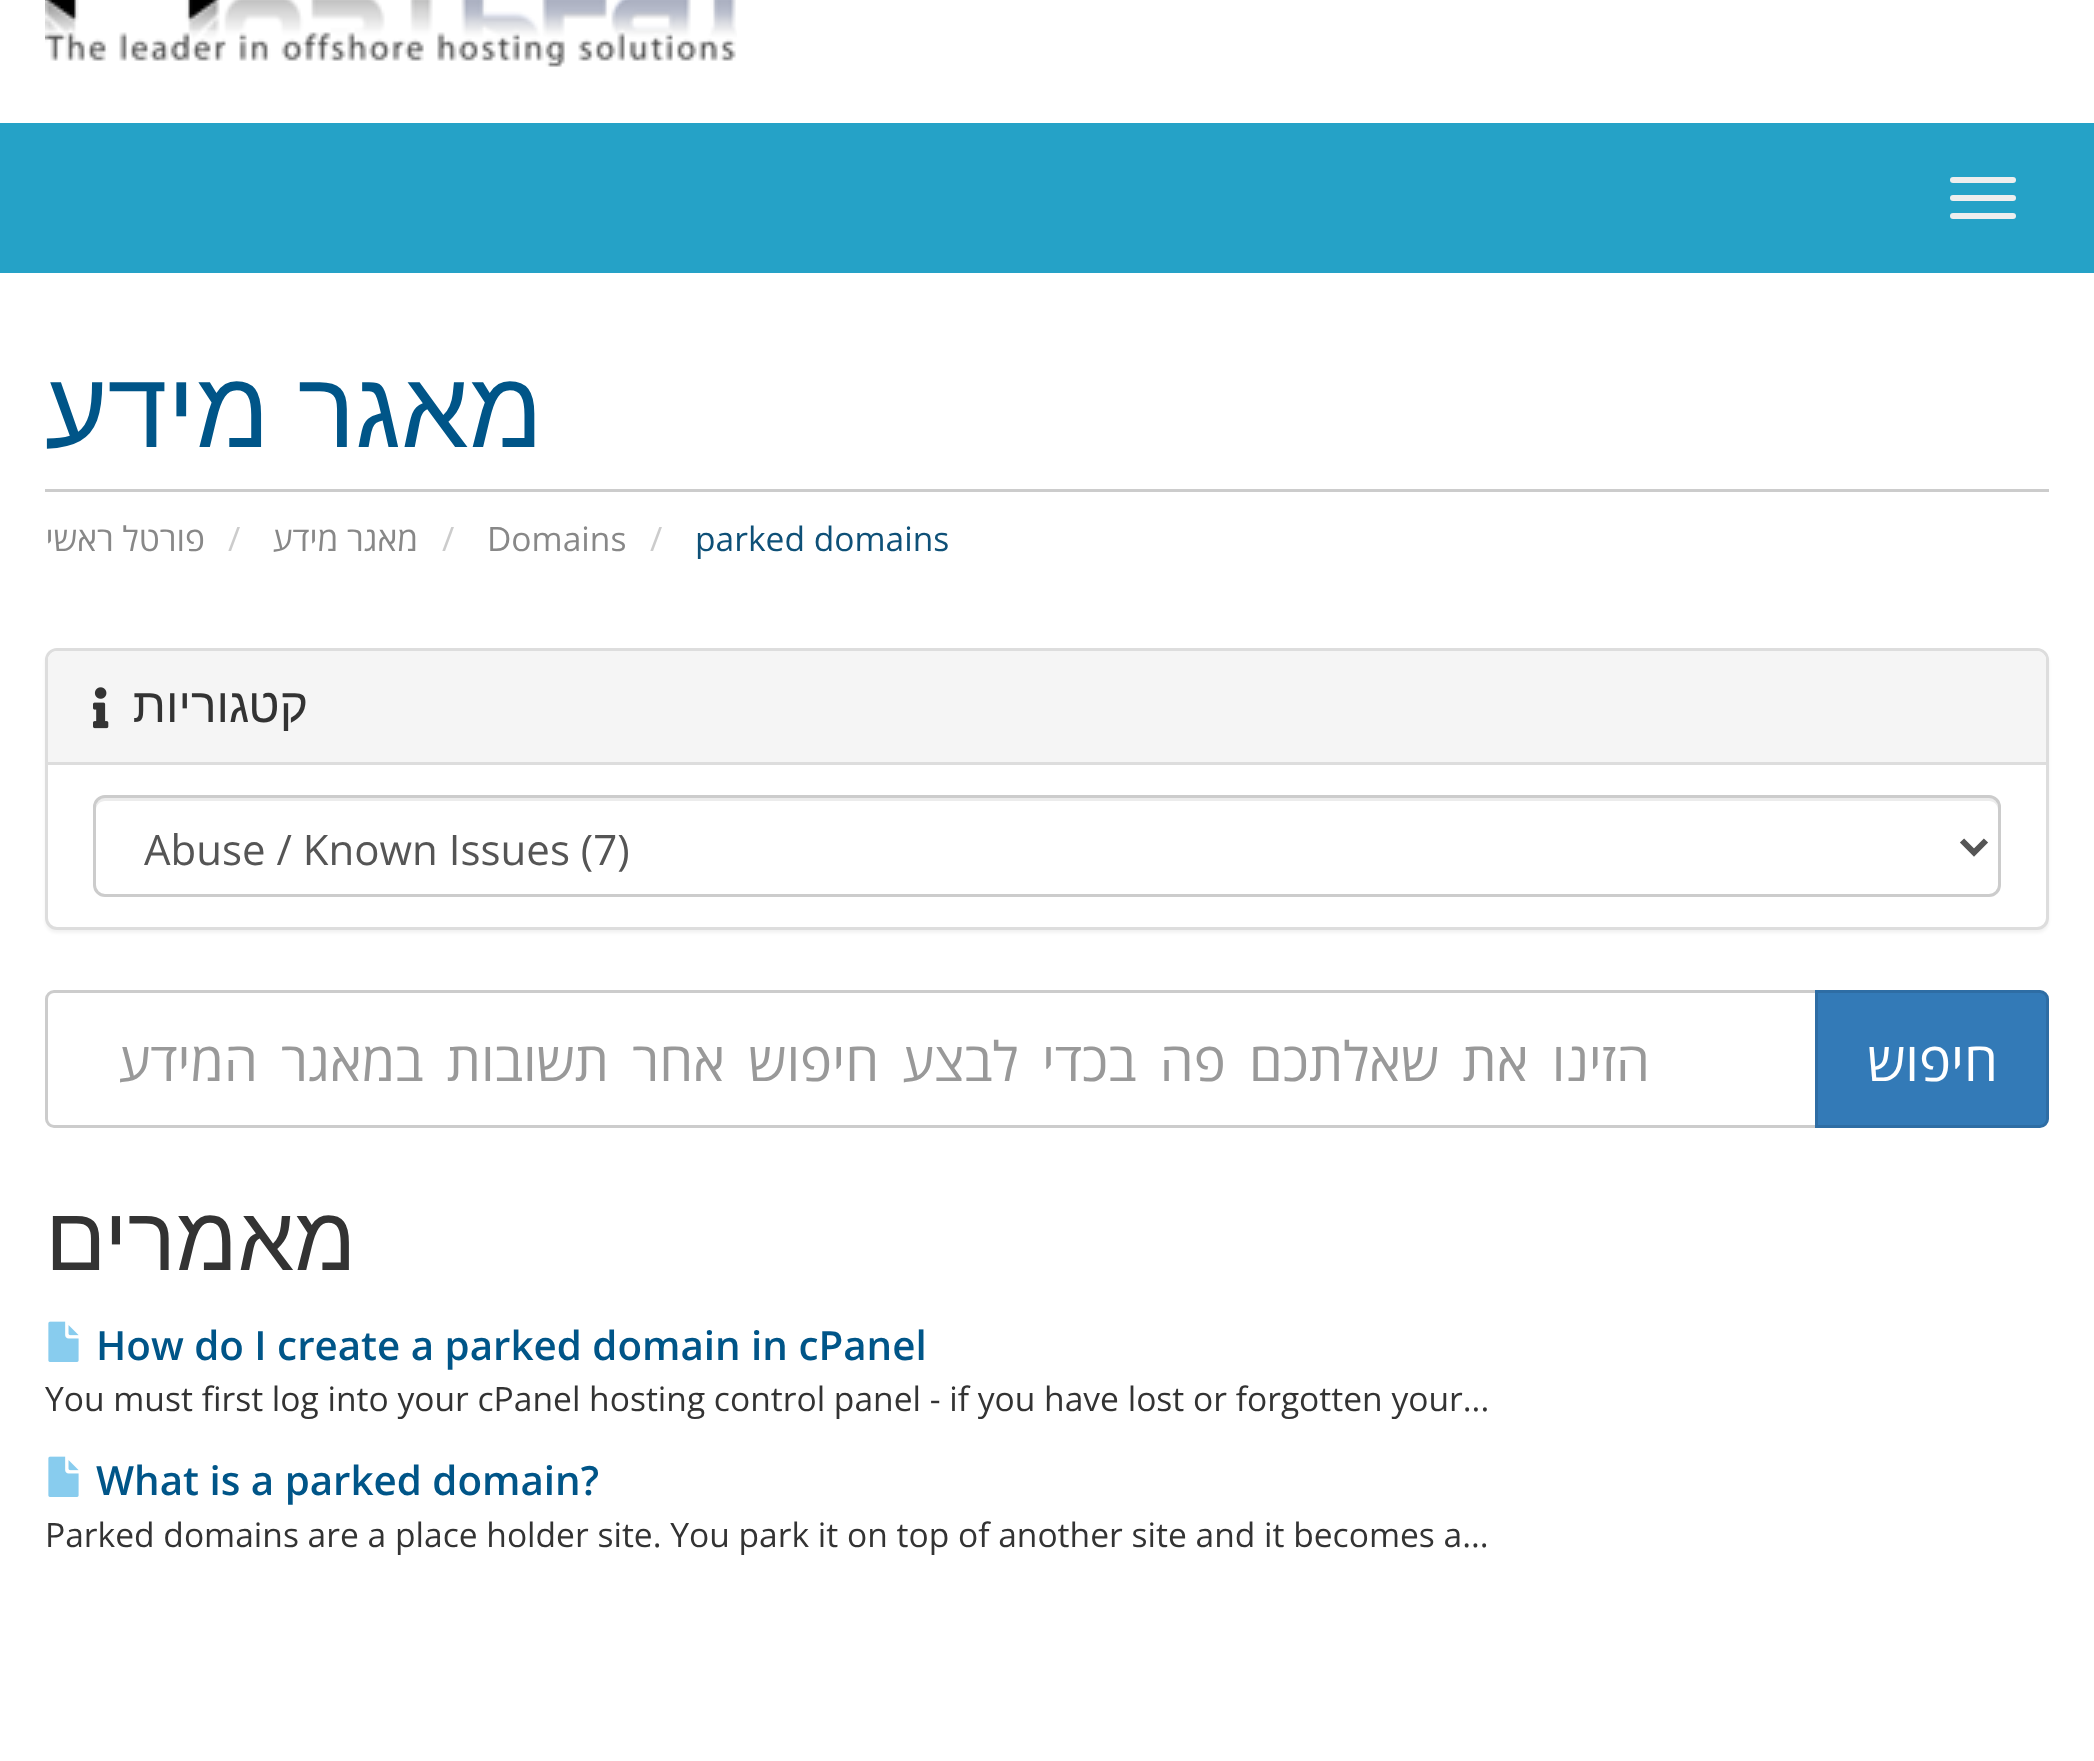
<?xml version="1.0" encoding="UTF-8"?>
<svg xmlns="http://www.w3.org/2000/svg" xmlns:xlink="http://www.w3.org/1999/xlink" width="2094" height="1761">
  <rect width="100%" height="100%" fill="#ffffff" />
  <image x="45" y="0" width="692" height="67" xlink:href="image1.png" />
  <rect y="123" width="2094" height="150" fill="#25a2c7" />
  <rect x="1950" y="177" width="66" height="6" rx="3" fill="#eeeeee" />
  <rect x="1950" y="195" width="66" height="6" rx="3" fill="#eeeeee" />
  <rect x="1950" y="213" width="66" height="6" rx="3" fill="#eeeeee" />
  <rect x="45" y="489" width="2004" height="3" fill="#cccccc" />
  <rect x="45" y="651" width="2004" height="282" rx="12" fill="#000000" fill-opacity="0.05" filter="blur(1.5px)" />
  <rect x="46.5" y="649.5" width="2001" height="279" rx="10.5" fill="#ffffff" stroke="#dddddd" stroke-width="3" />
  <path d="M 57 651 h 1980 c 5 0 9 4 9 9 v 105 h -1998 v -105 c 0 -5 4 -9 9 -9 z" fill="#f5f5f5" />
  <rect x="48" y="762" width="1998" height="3" fill="#dddddd" />
  <image x="93" y="687" width="16" height="42" xlink:href="image2.png" />
  <path d="M 105 801 h 1884 c 5 0 9 4 9 9 v -3 c 0 -5 -4 -9 -9 -9 h -1884 c -5 0 -9 4 -9 9 v 3 c 0 -5 4 -9 9 -9 z" fill="#ececec" />
  <rect x="94.5" y="796.5" width="1905" height="99" rx="10.5" fill="none" stroke="#cccccc" stroke-width="3" />
  <path d="M 1962 840.5 l 12 12 l 12 -12" fill="none" stroke="#555555" stroke-width="6" />
  <path d="M 54 991.5 h 1762.5 v 135 h -1762.5 c -4 0 -7.5 -3.5 -7.5 -7.5 v -120 c 0 -4 3.5 -7.5 7.5 -7.5 z" fill="none" stroke="#cccccc" stroke-width="3" />
  <path d="M 1816.5 991.5 h 223.5 c 4 0 7.5 3.5 7.5 7.5 v 120 c 0 4 -3.5 7.5 -7.5 7.5 h -223.5 z" fill="#337ab7" stroke="#2e6da4" stroke-width="3" />
  <image x="48" y="1321" width="31" height="41" xlink:href="image3.png" />
  <image x="48" y="1456" width="31" height="41" xlink:href="image3.png" />
  <text x="543" y="447" word-spacing="-2" style="font-family: Liberation Sans; font-size: 108px; direction: rtl; fill: #005588">מאגר מידע</text>
  <text x="205" y="551" style="font-family: Open Sans; font-size: 33.6px; direction: rtl; fill: #888888">פורטל ראשי</text>
  <text x="228" y="551" style="font-family: Open Sans; font-size: 33.6px; fill: #cccccc">/</text>
  <text x="418" y="551" style="font-family: Open Sans; font-size: 33.6px; direction: rtl; fill: #888888">מאגר מידע</text>
  <text x="442" y="551" style="font-family: Open Sans; font-size: 33.6px; fill: #cccccc">/</text>
  <text x="487" y="551" style="font-family: Open Sans; font-size: 33.6px; fill: #888888">Domains</text>
  <text x="650" y="551" style="font-family: Open Sans; font-size: 33.6px; fill: #cccccc">/</text>
  <text x="695" y="551" style="font-family: Open Sans; font-size: 33.6px; fill: #0e5077">parked domains</text>
  <text x="308" y="722" style="font-family: Liberation Sans; font-size: 48px; direction: rtl; fill: #333333">קטגוריות</text>
  <text x="144" y="865" style="font-family: Open Sans; font-size: 42px; fill: #555555">Abuse / Known Issues (7)</text>
  <text x="1650" y="1081" word-spacing="9.25" style="font-family: Open Sans; font-size: 54px; direction: rtl; fill: #999999">הזינו את שאלתכם פה בכדי לבצע חיפוש אחר תשובות במאגר המידע</text>
  <text x="1998" y="1081" style="font-family: Open Sans; font-size: 54px; direction: rtl; fill: #ffffff">חיפוש</text>
  <text x="356" y="1270" style="font-family: Liberation Sans; font-size: 90px; direction: rtl; fill: #333333">מאמרים</text>
  <text x="96" y="1360" style="font-family: Open Sans; font-size: 40.3px; font-weight: 600; fill: #005588">How do I create a parked domain in cPanel</text>
  <text x="45" y="1411" style="font-family: Open Sans; font-size: 33.6px; fill: #333333">You must first log into your cPanel hosting control panel - if you have lost or forgotten your...</text>
  <text x="96" y="1495" style="font-family: Open Sans; font-size: 40.3px; font-weight: 600; fill: #005588">What is a parked domain?</text>
  <text x="45" y="1547" style="font-family: Open Sans; font-size: 33.6px; fill: #333333">Parked domains are a place holder site. You park it on top of another site and it becomes a...</text>
</svg>
